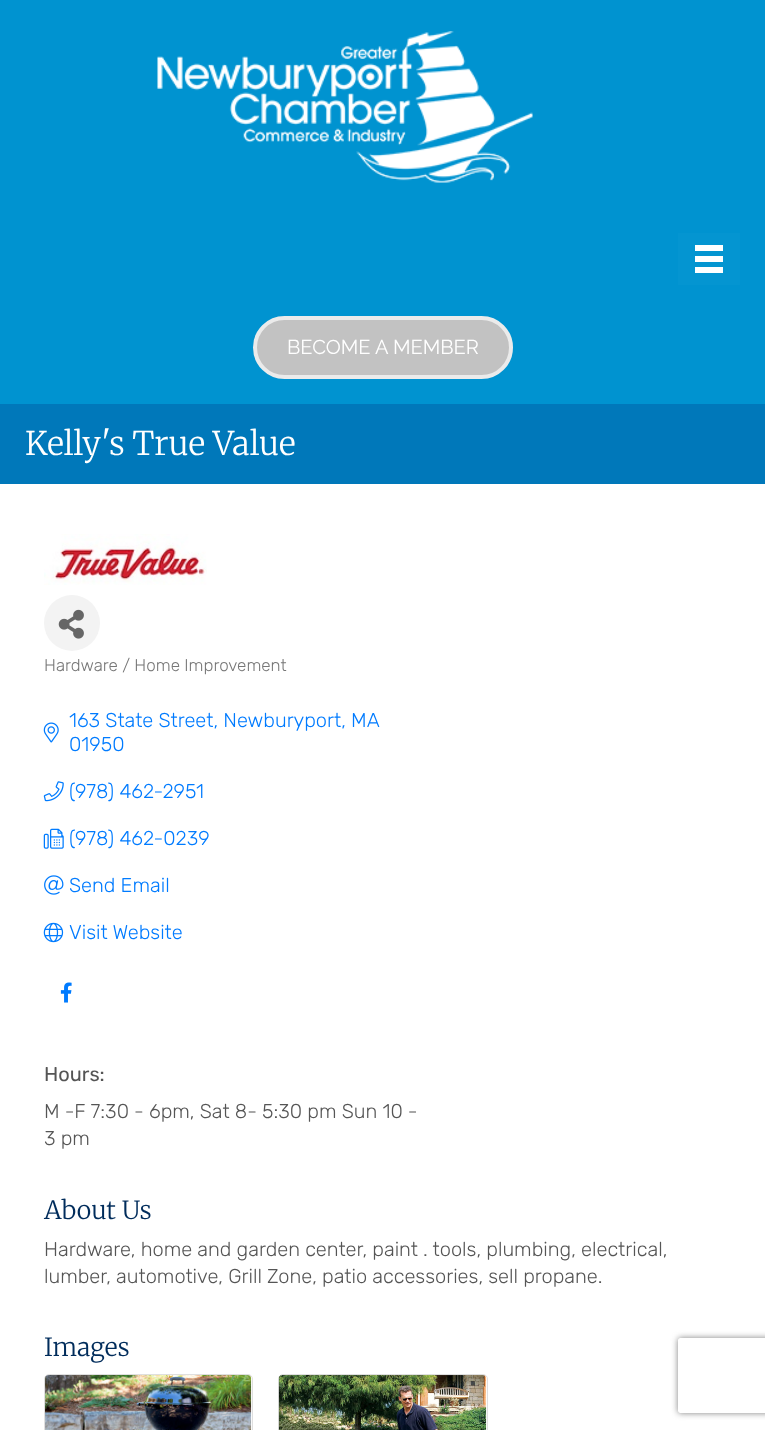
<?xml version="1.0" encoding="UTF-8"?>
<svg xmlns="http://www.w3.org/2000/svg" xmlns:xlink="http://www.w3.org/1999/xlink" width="765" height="1430">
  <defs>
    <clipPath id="clip1"><path d="M 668 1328 h 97 v 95 h -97 z m 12.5 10 h 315 c 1.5 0 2.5 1 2.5 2.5 v 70 c 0 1.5 -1 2.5 -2.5 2.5 h -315 c -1.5 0 -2.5 -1 -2.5 -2.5 v -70 c 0 -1.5 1 -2.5 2.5 -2.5 z" clip-rule="evenodd" /></clipPath>
  </defs>
  <rect width="100%" height="100%" fill="#ffffff" />
  <rect width="765" height="404" fill="#0093d0" />
  <image x="157" y="31" width="376" height="152" xlink:href="image1.png" />
  <rect x="678" y="233" width="62" height="52" fill="#0495d1" />
  <rect x="695" y="245" width="28" height="6" fill="#ffffff" />
  <rect x="695" y="256" width="28" height="6" fill="#ffffff" />
  <rect x="695" y="267" width="28" height="6" fill="#ffffff" />
  <rect x="255" y="318" width="256" height="59" rx="29.5" fill="#c2c2c2" stroke="#ebebeb" stroke-width="4" />
  <rect y="404" width="765" height="80" fill="#0078ba" />
  <image x="44" y="534" width="163" height="51" xlink:href="image2.png" />
  <circle cx="72" cy="623" r="28" fill="#f3f3f3" />
  <image x="58" y="609" width="26" height="30" xlink:href="image3.png" />
  <image x="43" y="722" width="16" height="21" xlink:href="image4.png" />
  <image x="43" y="781" width="21" height="21" xlink:href="image5.png" />
  <image x="43" y="828" width="21" height="21" xlink:href="image6.png" />
  <image x="44" y="875" width="20" height="20" xlink:href="image7.png" />
  <image x="43" y="922" width="21" height="21" xlink:href="image8.png" />
  <image x="60" y="982" width="12" height="21" xlink:href="image9.png" />
  <rect x="44.5" y="1374.5" width="208" height="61" rx="4.5" fill="none" stroke="#dfdfdf" />
  <image x="45" y="1375" width="207" height="55" xlink:href="image10.png" />
  <rect x="278.5" y="1374.5" width="209" height="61" rx="4.5" fill="none" stroke="#dfdfdf" />
  <image x="278" y="1375" width="209" height="55" xlink:href="image11.png" />
  <g clip-path="url(#clip1)">
    <rect x="678" y="1338" width="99" height="75" rx="2.5" fill="#808080" filter="blur(3px)" />
  </g>
  <text x="287" y="354" style="font-family: Raleway; font-size: 20px; font-weight: 100; fill: #ffffff">BECOME A MEMBER</text>
  <text x="25" y="455" style="font-family: Merriweather; font-size: 32.5px; font-weight: 300; fill: #ffffff">Kelly's True Value</text>
  <text x="44" y="671" style="font-family: Rubik; font-size: 17px; font-weight: 300; fill: #777777">Hardware / Home Improvement</text>
  <text x="69" y="727" style="font-family: Rubik; font-size: 20px; font-weight: 300; fill: #007bff">163 State Street, Newburyport, MA</text>
  <text x="69" y="751" style="font-family: Rubik; font-size: 20px; font-weight: 300; fill: #007bff">01950</text>
  <text x="69" y="798" style="font-family: Rubik; font-size: 20px; font-weight: 300; fill: #007bff">(978) 462-2951</text>
  <text x="69" y="845" style="font-family: Rubik; font-size: 20px; font-weight: 300; fill: #007bff">(978) 462-0239</text>
  <text x="69" y="892" style="font-family: Rubik; font-size: 20px; font-weight: 300; fill: #007bff">Send Email</text>
  <text x="69" y="939" style="font-family: Rubik; font-size: 20px; font-weight: 300; fill: #007bff">Visit Website</text>
  <text x="44" y="1081" style="font-family: Rubik; font-size: 20px; fill: #555555">Hours:</text>
  <text x="44" y="1118" style="font-family: Rubik; font-size: 20px; font-weight: 300; fill: #555555">M -F 7:30 - 6pm, Sat 8- 5:30 pm Sun 10 -</text>
  <text x="44" y="1145" style="font-family: Rubik; font-size: 20px; font-weight: 300; fill: #555555">3 pm</text>
  <text x="44" y="1219" style="font-family: Merriweather; font-size: 25px; font-weight: 300; fill: #002c5b">About Us</text>
  <text x="44" y="1256" style="font-family: Rubik; font-size: 20px; font-weight: 300; fill: #555555">Hardware, home and garden center, paint . tools, plumbing, electrical,</text>
  <text x="44" y="1283" style="font-family: Rubik; font-size: 20px; font-weight: 300; fill: #555555">lumber, automotive, Grill Zone, patio accessories, sell propane.</text>
  <text x="44" y="1356" style="font-family: Merriweather; font-size: 25px; font-weight: 300; fill: #002c5b">Images</text>
</svg>
